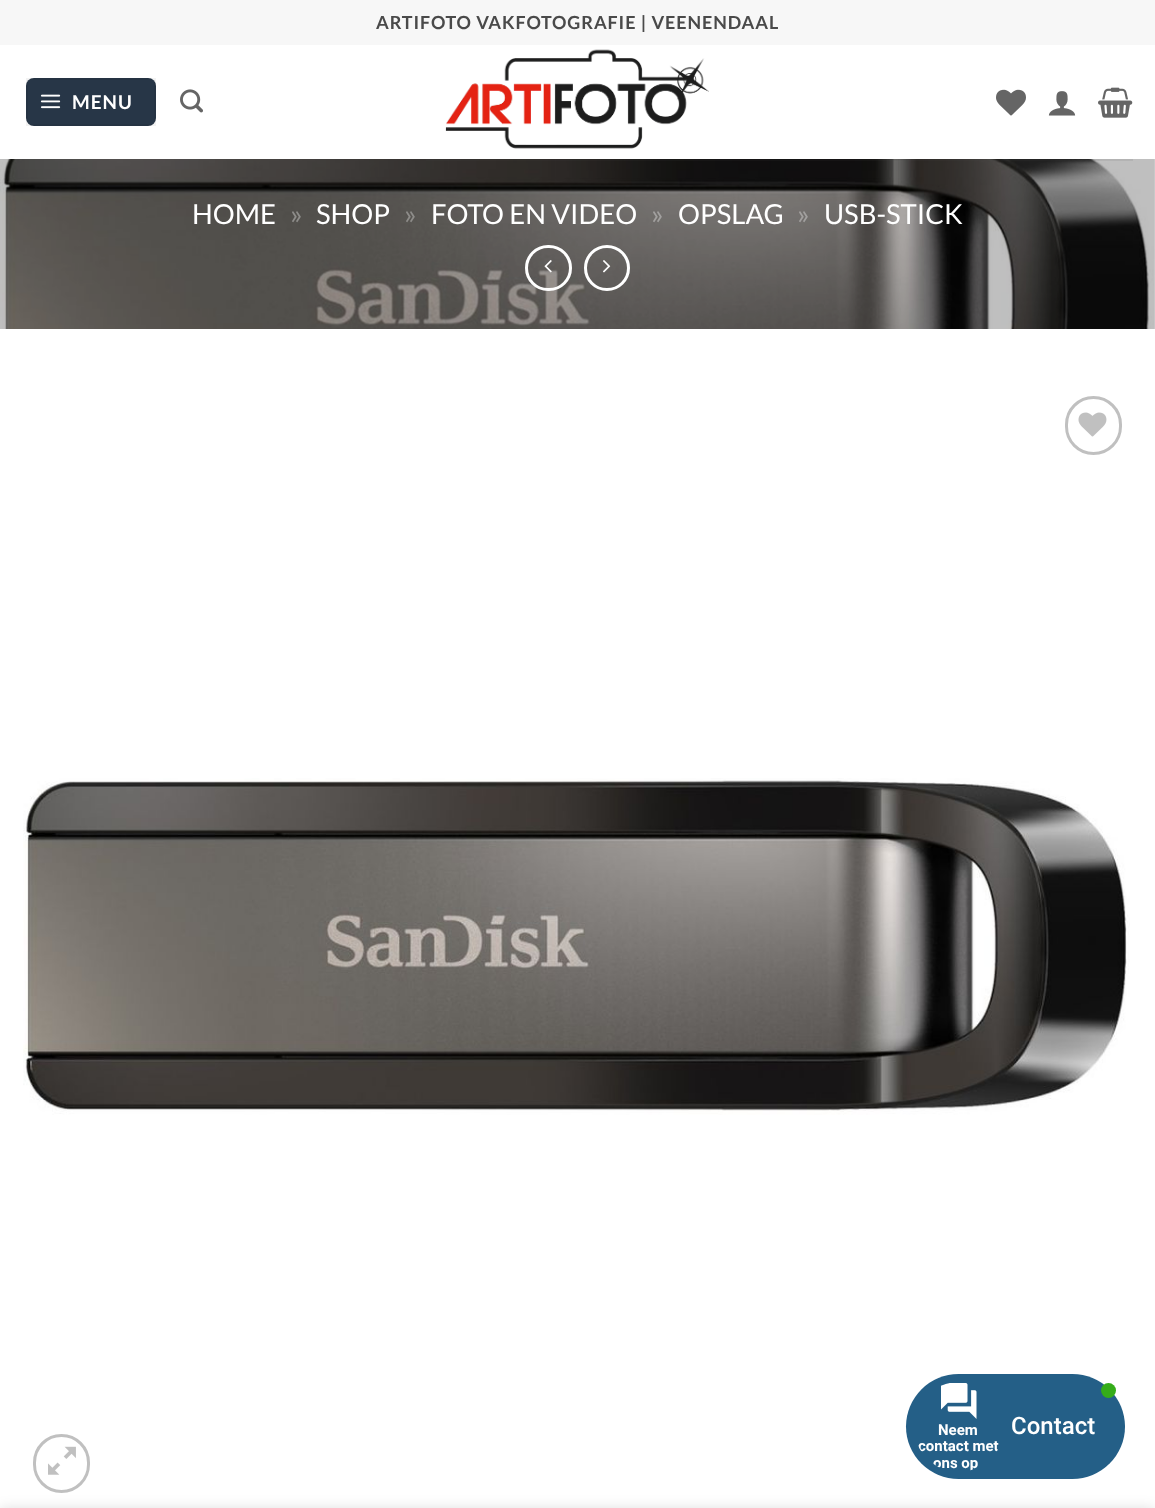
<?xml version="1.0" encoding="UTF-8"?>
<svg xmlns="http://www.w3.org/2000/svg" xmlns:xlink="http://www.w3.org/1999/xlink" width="1155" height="1508">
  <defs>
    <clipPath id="clip1"><rect x="914" y="1382" width="90" height="90" rx="45" /></clipPath>
  </defs>
  <rect width="100%" height="100%" fill="#ffffff" />
  <rect width="1155" height="45" fill="#f7f7f7" />
  <rect x="26" y="78" width="130" height="48" rx="8" fill="#273647" />
  <rect x="27" y="79" width="128" height="46" fill="none" stroke="#000000" stroke-opacity="0.05" stroke-width="2" />
  <image x="40" y="94" width="21" height="15" xlink:href="image1.png" />
  <image x="180" y="89" width="23" height="24" xlink:href="image2.png" />
  <image x="445" y="49" width="264" height="100" xlink:href="image3.png" />
  <image x="996" y="89" width="30" height="27" xlink:href="image4.png" />
  <image x="1048" y="91" width="28" height="25" xlink:href="image5.png" />
  <image x="1098" y="87" width="35" height="31" xlink:href="image6.png" />
  <image x="0" y="159" width="1155" height="170" xlink:href="image7.png" />
  <rect x="426" y="159" width="707" height="2" fill="#4a4a4a" fill-opacity="0.1" />
  <rect x="526.5" y="246.5" width="44" height="43" rx="21.5" fill="none" stroke="#ffffff" stroke-width="3" />
  <image x="544" y="260" width="8" height="13" xlink:href="image8.png" />
  <circle cx="607" cy="268" r="21.5" fill="none" stroke="#ffffff" stroke-width="3" />
  <image x="603" y="260" width="8" height="13" xlink:href="image9.png" />
  <rect x="1066.5" y="397.5" width="54" height="56" rx="27" fill="none" stroke="#c0c0c0" stroke-width="3" />
  <image x="1078" y="412" width="29" height="25" xlink:href="image10.png" />
  <image x="23" y="778" width="1107" height="337" xlink:href="image11.png" />
  <rect x="34.5" y="1435.5" width="54" height="56" rx="27" fill="none" stroke="#c0c0c0" stroke-width="3" />
  <image x="48" y="1446" width="28" height="29" xlink:href="image12.png" />
  <rect x="906" y="1374" width="219" height="105" rx="52.5" fill="#245f87" />
  <circle cx="1108.5" cy="1390.5" r="7.5" fill="#35ac19" />
  <image x="941" y="1383" width="36" height="36" xlink:href="image13.png" />
  <rect y="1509" width="1155" height="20" fill="#000000" fill-opacity="0.14" filter="blur(7px)" />
  <text x="376" y="29" style="font-family: Lato; font-size: 18px; font-weight: bold; letter-spacing: 0.9px; fill: #4a4a4a">ARTIFOTO VAKFOTOGRAFIE | VEENENDAAL</text>
  <text x="72" y="109" style="font-family: Lato; font-size: 19px; font-weight: bold; letter-spacing: 1px; fill: #ffffff">MENU</text>
  <text x="192" y="224" style="font-family: Lato; font-size: 27.5px; fill: #ffffff">HOME</text>
  <text x="290" y="224" style="font-family: Lato; font-size: 27.5px; fill: #8e8d8a">»</text>
  <text x="316" y="224" style="font-family: Lato; font-size: 27.5px; fill: #ffffff">SHOP</text>
  <text x="404" y="224" style="font-family: Lato; font-size: 27.5px; fill: #8e8d8a">»</text>
  <text x="431" y="224" style="font-family: Lato; font-size: 27.5px; fill: #ffffff">FOTO EN VIDEO</text>
  <text x="651" y="224" style="font-family: Lato; font-size: 27.5px; fill: #a2a09f">»</text>
  <text x="678" y="224" style="font-family: Lato; font-size: 27.5px; fill: #ffffff">OPSLAG</text>
  <text x="797" y="224" style="font-family: Lato; font-size: 27.5px; fill: #a2a09f">»</text>
  <text x="824" y="224" style="font-family: Lato; font-size: 27.5px; fill: #ffffff">USB-STICK</text>
  <text x="938" y="1435" style="font-family: Roboto; font-size: 15px; font-weight: bold; fill: #ffffff">Neem</text>
  <g clip-path="url(#clip1)">
    <text x="918" y="1451" style="font-family: Roboto; font-size: 15px; font-weight: bold; fill: #ffffff">contact met</text>
    <text x="933" y="1468" style="font-family: Roboto; font-size: 15px; font-weight: bold; fill: #ffffff">ons op</text>
  </g>
  <text x="1011" y="1434" style="font-family: Roboto; font-size: 24px; font-weight: 500; fill: #ffffff">Contact</text>
</svg>
